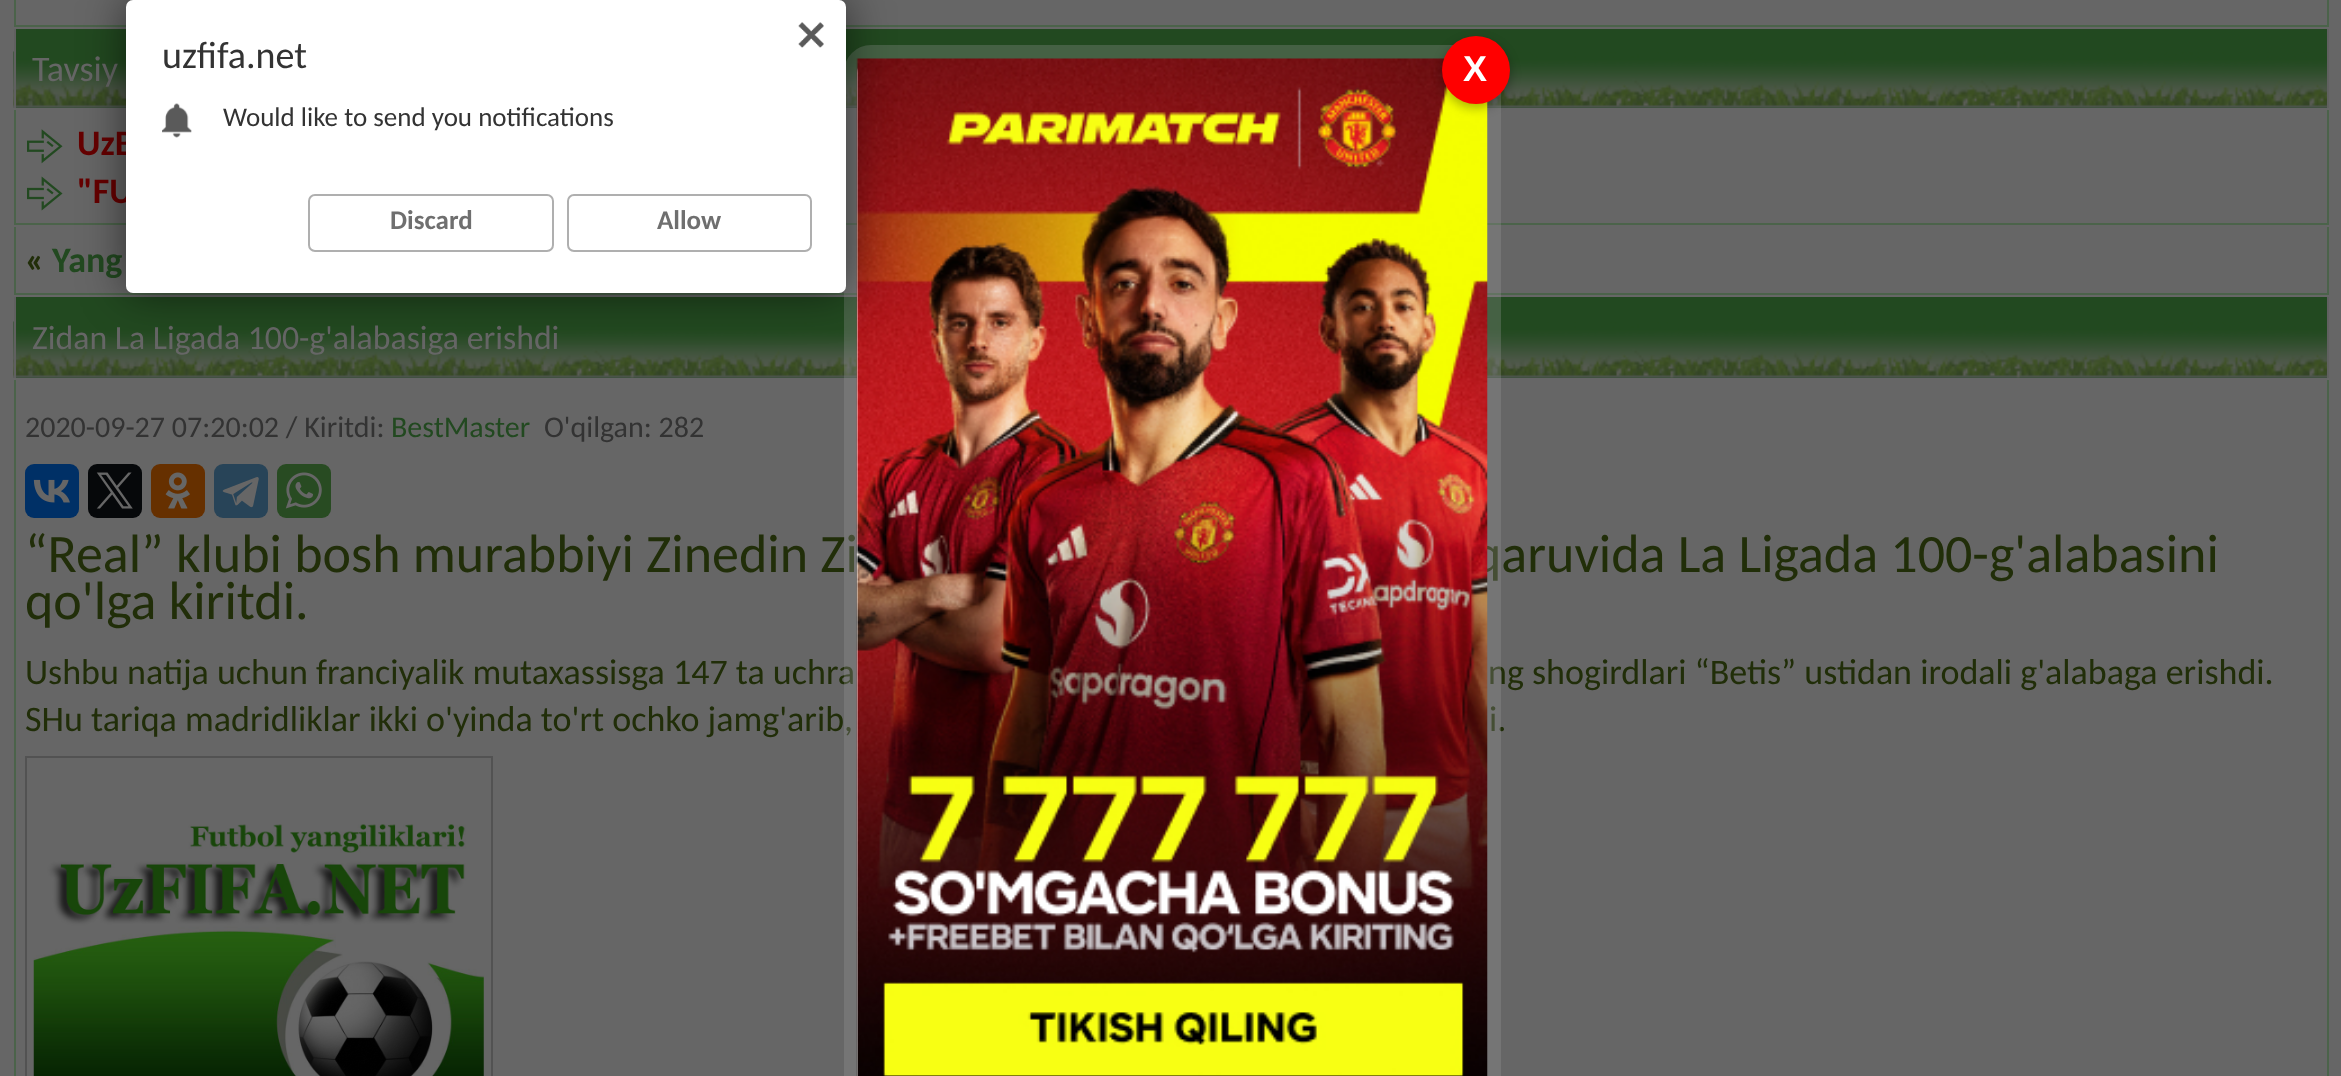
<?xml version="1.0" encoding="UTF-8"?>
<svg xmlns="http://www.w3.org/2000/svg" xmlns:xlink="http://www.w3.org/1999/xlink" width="2341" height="1076">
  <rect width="100%" height="100%" fill="#666666" />
  <rect x="2327" width="2" height="27" fill="#4b634a" />
  <rect x="14" y="25" width="2315" height="2" fill="#4b634a" />
  <rect x="14" width="2" height="27" fill="#4b634a" />
  <rect x="16" y="29" width="2311" height="79" fill="#224920" />
  <image x="13" y="51" width="2314" height="57" xlink:href="image3.png" />
  <rect x="2327" y="29" width="2" height="79" fill="#606060" />
  <rect x="14" y="29" width="2" height="79" fill="#606060" />
  <rect x="2327" y="110" width="2" height="115" fill="#4b634a" />
  <rect x="14" y="223" width="2315" height="2" fill="#4b634a" />
  <rect x="14" y="110" width="2" height="115" fill="#4b634a" />
  <image x="27" y="129" width="36" height="35" xlink:href="image4.png" />
  <image x="27" y="176" width="36" height="35" xlink:href="image5.png" />
  <rect x="2327" y="227" width="2" height="68" fill="#4b634a" />
  <rect x="14" y="293" width="2315" height="2" fill="#4b634a" />
  <rect x="14" y="227" width="2" height="68" fill="#4b634a" />
  <rect x="16" y="297" width="2311" height="81" fill="#224920" />
  <image x="13" y="321" width="2314" height="57" xlink:href="image6.png" />
  <rect x="2327" y="297" width="2" height="81" fill="#606060" />
  <rect x="14" y="297" width="2" height="81" fill="#606060" />
  <rect x="2327" y="380" width="2" height="696" fill="#4b634a" />
  <rect x="14" y="380" width="2" height="696" fill="#4b634a" />
  <rect x="25" y="464" width="54" height="54" rx="9" fill="#003066" />
  <image x="33" y="479" width="37" height="24" xlink:href="image7.png" />
  <rect x="88" y="464" width="54" height="54" rx="9" fill="#06080a" />
  <image x="96" y="472" width="37" height="37" xlink:href="image8.png" />
  <rect x="151" y="464" width="54" height="54" rx="9" fill="#663000" />
  <image x="165" y="472" width="25" height="37" xlink:href="image9.png" />
  <rect x="214" y="464" width="54" height="54" rx="9" fill="#284458" />
  <image x="222" y="477" width="37" height="31" xlink:href="image10.png" />
  <rect x="277" y="464" width="54" height="54" rx="9" fill="#284b22" />
  <image x="285" y="472" width="37" height="37" xlink:href="image11.png" />
  <rect x="26" y="757" width="466" height="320" fill="none" stroke="#525252" stroke-width="2" />
  <image x="33" y="824" width="451" height="252" xlink:href="image12.png" />
  <text x="32" y="81" style="font-family: Carlito; font-size: 36px; fill: #666666">Tavsiy</text>
  <text x="77" y="155" style="font-family: Carlito; font-size: 36px; font-weight: bold; fill: #660000">UzB</text>
  <text x="77" y="203" style="font-family: Carlito; font-size: 36px; font-weight: bold; fill: #660000">"FU</text>
  <text x="25" y="272" style="font-family: Carlito; font-size: 36px; font-weight: bold; fill: #212e09">«</text>
  <text x="52" y="272" style="font-family: Carlito; font-size: 36px; font-weight: bold; fill: #224920">Yang</text>
  <text x="32" y="349" style="font-family: Carlito; font-size: 33.75px; fill: #666666">Zidan La Ligada 100-g'alabasiga erishdi</text>
  <text x="25" y="437" style="font-family: Carlito; font-size: 30px; fill: #333333">2020-09-27 07:20:02 / Kiritdi:</text>
  <text x="391" y="437" style="font-family: Carlito; font-size: 30px; fill: #224920">BestMaster</text>
  <text x="544" y="437" style="font-family: Carlito; font-size: 30px; fill: #333333">O'qilgan: 282</text>
  <text x="25" y="572" style="font-family: Carlito; font-size: 54px; fill: #212e09">“Real” klubi bosh murabbiyi Zinedin Zi</text>
  <text x="1473" y="572" style="font-family: Carlito; font-size: 54px; fill: #212e09">qaruvida La Ligada 100-g'alabasini</text>
  <text x="25" y="619" style="font-family: Carlito; font-size: 54px; fill: #212e09">qo'lga kiritdi.</text>
  <text x="25" y="684" style="font-family: Carlito; font-size: 36px; fill: #212e09">Ushbu natija uchun franciyalik mutaxassisga 147 ta uchra</text>
  <text x="1488" y="684" style="font-family: Carlito; font-size: 36px; fill: #212e09">ng shogirdlari “Betis” ustidan irodali g'alabaga erishdi.</text>
  <text x="25" y="731" style="font-family: Carlito; font-size: 36px; fill: #212e09">SHu tariqa madridliklar ikki o'yinda to'rt ochko jamg'arib,</text>
  <text x="1489" y="731" style="font-family: Carlito; font-size: 36px; fill: #212e09">i.</text>
  <rect x="851" y="52" width="643" height="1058" rx="20" fill="none" stroke="#999999" stroke-opacity="0.3" stroke-width="14" />
  <path d="M 871 59 h 602 c 7.5 0 14 6.5 14 14 v 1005 h -630 v -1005 c 0 -7.5 6.5 -14 14 -14 z" fill="#ffffff" />
  <image x="856" y="58" width="632" height="1018" xlink:href="image13.png" />
  <rect x="126" width="720" height="293" rx="7" fill="#000000" fill-opacity="0.54" filter="blur(22.5px)" />
  <rect x="126" width="720" height="293" rx="7" fill="#ffffff" />
  <image x="798" y="22" width="26" height="26" xlink:href="image1.png" />
  <rect x="568" y="195" width="243" height="56" rx="6" fill="none" stroke="#afafaf" stroke-width="2" />
  <text x="657" y="229" style="font-family: Carlito; font-size: 27px; font-weight: bold; fill: #6f6f6f">Allow</text>
  <rect x="309" y="195" width="244" height="56" rx="6" fill="none" stroke="#afafaf" stroke-width="2" />
  <text x="390" y="229" style="font-family: Carlito; font-size: 27px; font-weight: bold; fill: #6f6f6f">Discard</text>
  <text x="223" y="126" style="font-family: Carlito; font-size: 27px; fill: #333333">Would like to send you notifications</text>
  <image x="162" y="103" width="30" height="35" xlink:href="image2.png" />
  <text x="162" y="68" style="font-family: Carlito; font-size: 38px; fill: #333333">uzfifa.net</text>
  <rect x="1442" y="41" width="68" height="67" rx="33.5" fill="#000000" fill-opacity="0.3" filter="blur(5.5px)" />
  <circle cx="1476" cy="70" r="34" fill="#ff0000" />
  <text x="1463" y="81" style="font-family: Liberation Sans; font-size: 36px; font-weight: bold; fill: #ffffff">X</text>
</svg>
